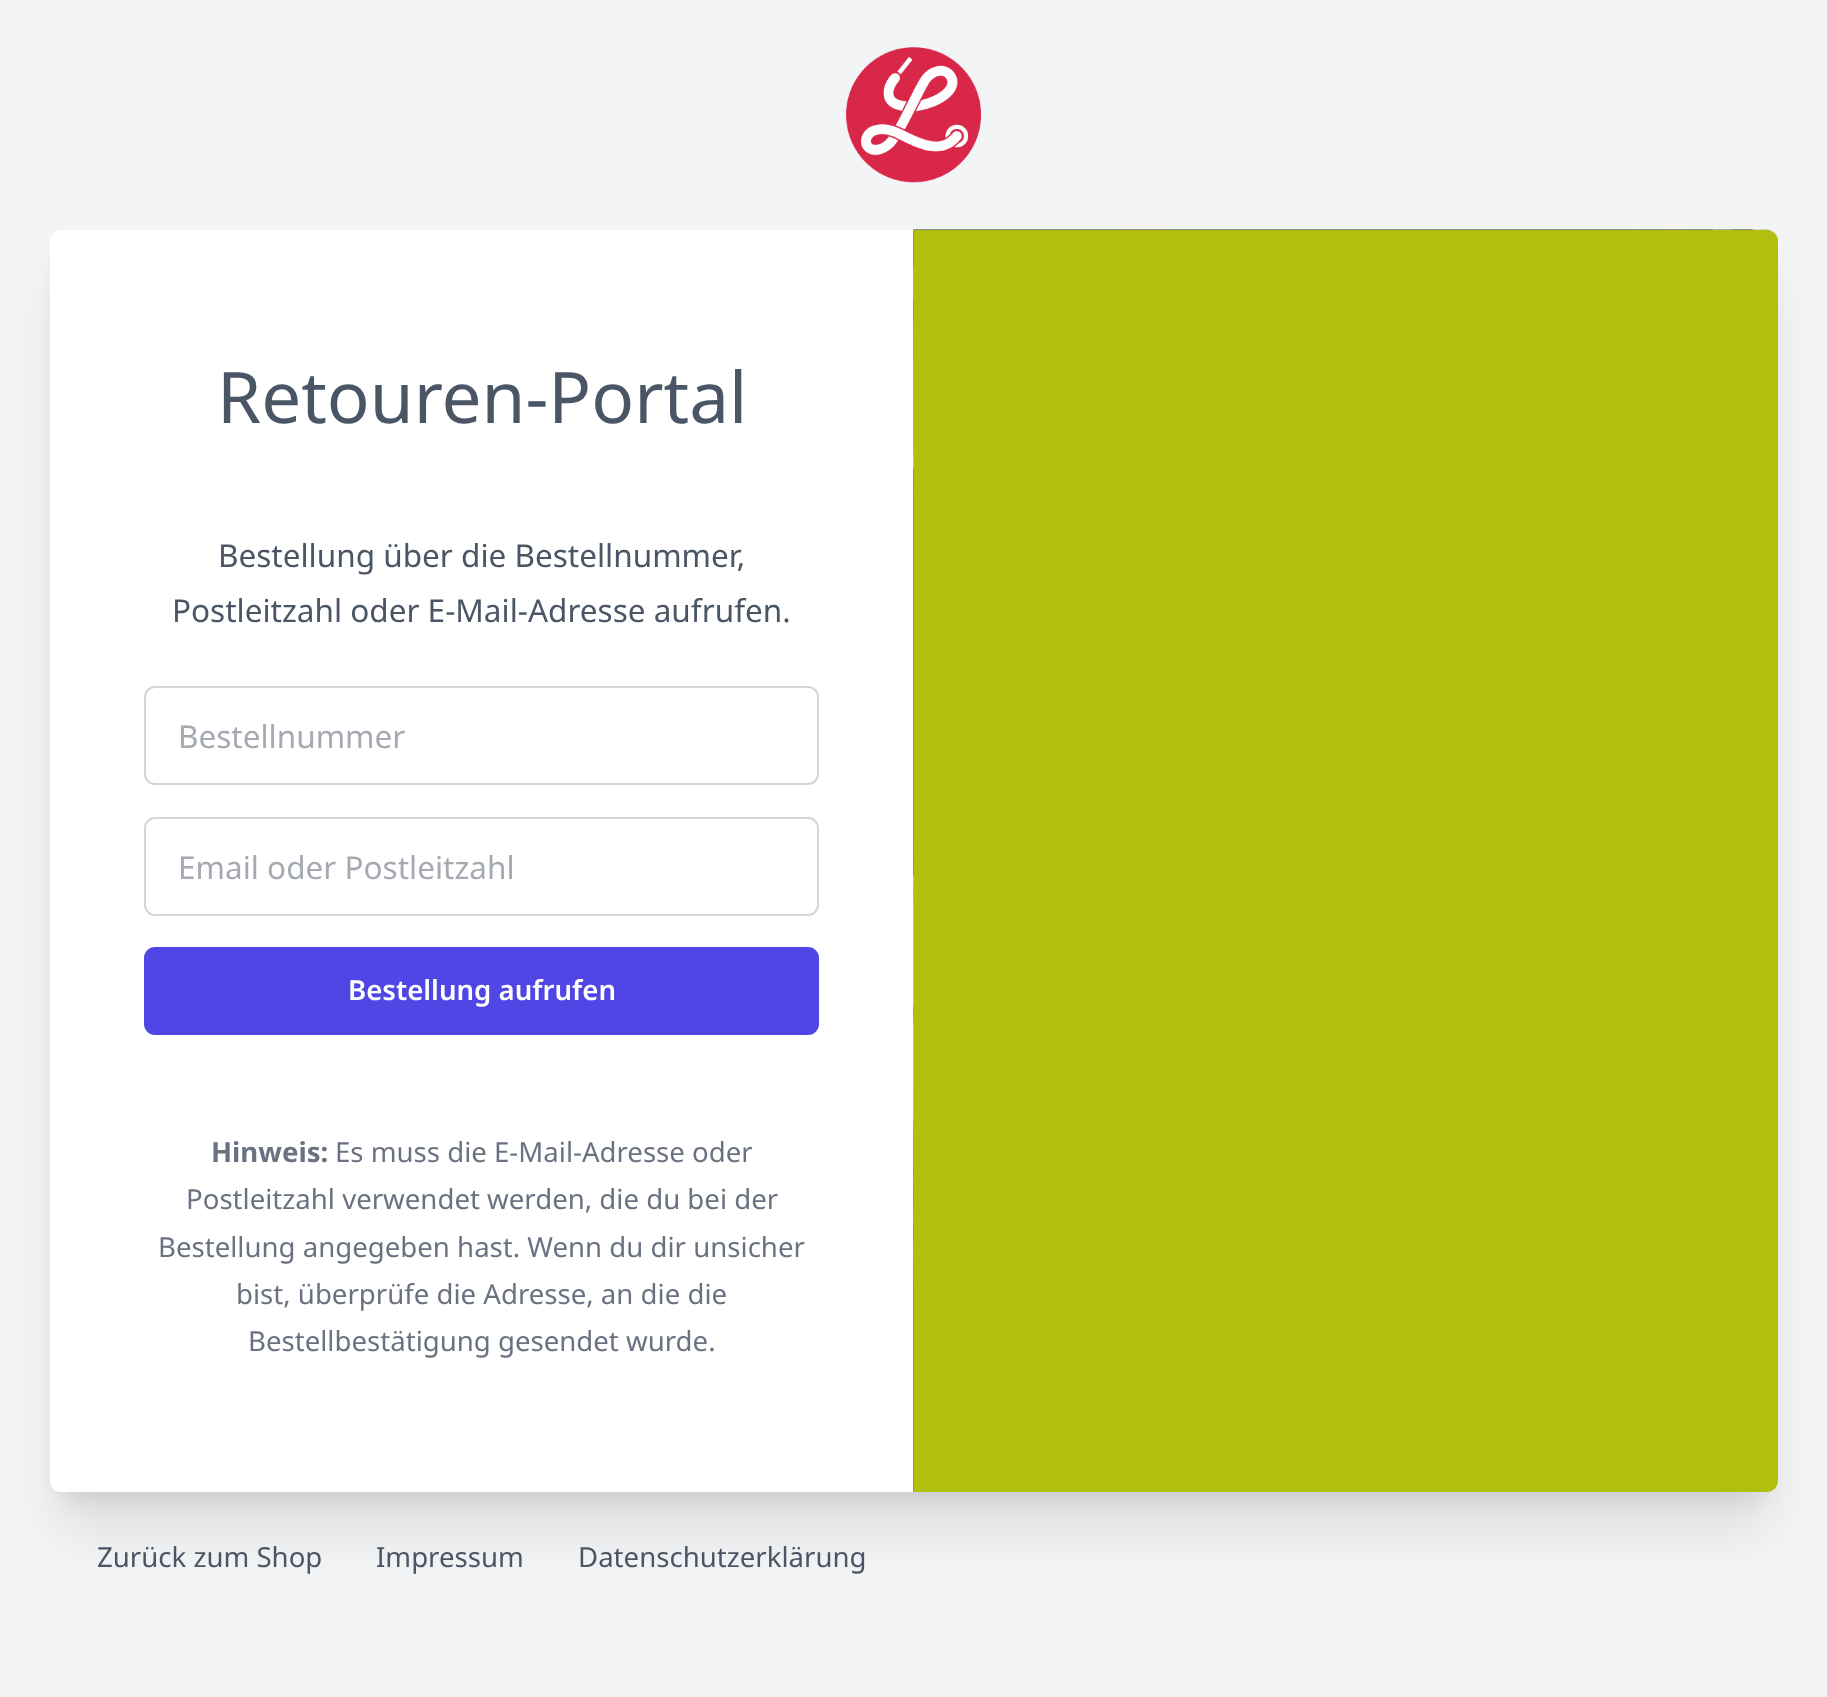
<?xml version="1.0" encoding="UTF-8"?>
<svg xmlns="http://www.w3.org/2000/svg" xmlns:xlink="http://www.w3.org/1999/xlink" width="1827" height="1697">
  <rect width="100%" height="100%" fill="#f3f4f6" />
  <image x="846" y="47" width="135" height="136" xlink:href="image1.png" />
  <rect x="63" y="261" width="1701" height="1235" fill="#000000" fill-opacity="0.1" filter="blur(11px)" />
  <rect x="61" y="286" width="1705" height="1240" fill="#000000" fill-opacity="0.1" filter="blur(28px)" />
  <rect x="50" y="230" width="1728" height="1262" rx="11" fill="#ffffff" />
  <rect x="145" y="687" width="673" height="97" rx="10" fill="none" stroke="#d1d5dc" stroke-width="2" />
  <rect x="145" y="818" width="673" height="97" rx="10" fill="none" stroke="#d1d5dc" stroke-width="2" />
  <rect x="144" y="947" width="675" height="88" rx="11" fill="#4f46e5" />
  <image x="913" y="229" width="865" height="1263" xlink:href="image2.png" />
  <path d="M 914 230 h 853 c 6 0 11 5 11 11 v 1240 c 0 6 -5 11 -11 11 h -853 z" fill="#b3bf0f" />
  <text x="217" y="423" style="font-family: Noto Sans; font-size: 71px; fill: #4a5565">Retouren-Portal</text>
  <text x="218" y="567" style="font-family: Noto Sans; font-size: 31.5px; fill: #4a5565">Bestellung über die Bestellnummer,</text>
  <text x="172" y="622" style="font-family: Noto Sans; font-size: 31.5px; fill: #4a5565">Postleitzahl oder E-Mail-Adresse aufrufen.</text>
  <text x="178" y="748" style="font-family: Noto Sans; font-size: 31.5px; fill: #a5aab2">Bestellnummer</text>
  <text x="178" y="879" style="font-family: Noto Sans; font-size: 31.5px; fill: #a5aab2">Email oder Postleitzahl</text>
  <text x="348" y="1000" style="font-family: Noto Sans; font-size: 27.6px; font-weight: 600; fill: #ffffff">Bestellung aufrufen</text>
  <text x="211" y="1162" style="font-family: Noto Sans; font-size: 27.6px; font-weight: bold; fill: #6a7282">Hinweis:</text>
  <text x="335" y="1162" style="font-family: Noto Sans; font-size: 27.6px; fill: #6a7282">Es muss die E-Mail-Adresse oder</text>
  <text x="186" y="1209" style="font-family: Noto Sans; font-size: 27.6px; fill: #6a7282">Postleitzahl verwendet werden, die du bei der</text>
  <text x="158" y="1257" style="font-family: Noto Sans; font-size: 27.6px; fill: #6a7282">Bestellung angegeben hast. Wenn du dir unsicher</text>
  <text x="236" y="1304" style="font-family: Noto Sans; font-size: 27.6px; fill: #6a7282">bist, überprüfe die Adresse, an die die</text>
  <text x="248" y="1351" style="font-family: Noto Sans; font-size: 27.6px; fill: #6a7282">Bestellbestätigung gesendet wurde.</text>
  <text x="97" y="1567" style="font-family: Noto Sans; font-size: 27.6px; fill: #4a5565">Zurück zum Shop</text>
  <text x="376" y="1567" style="font-family: Noto Sans; font-size: 27.6px; fill: #4a5565">Impressum</text>
  <text x="578" y="1567" style="font-family: Noto Sans; font-size: 27.6px; fill: #4a5565">Datenschutzerklärung</text>
</svg>
